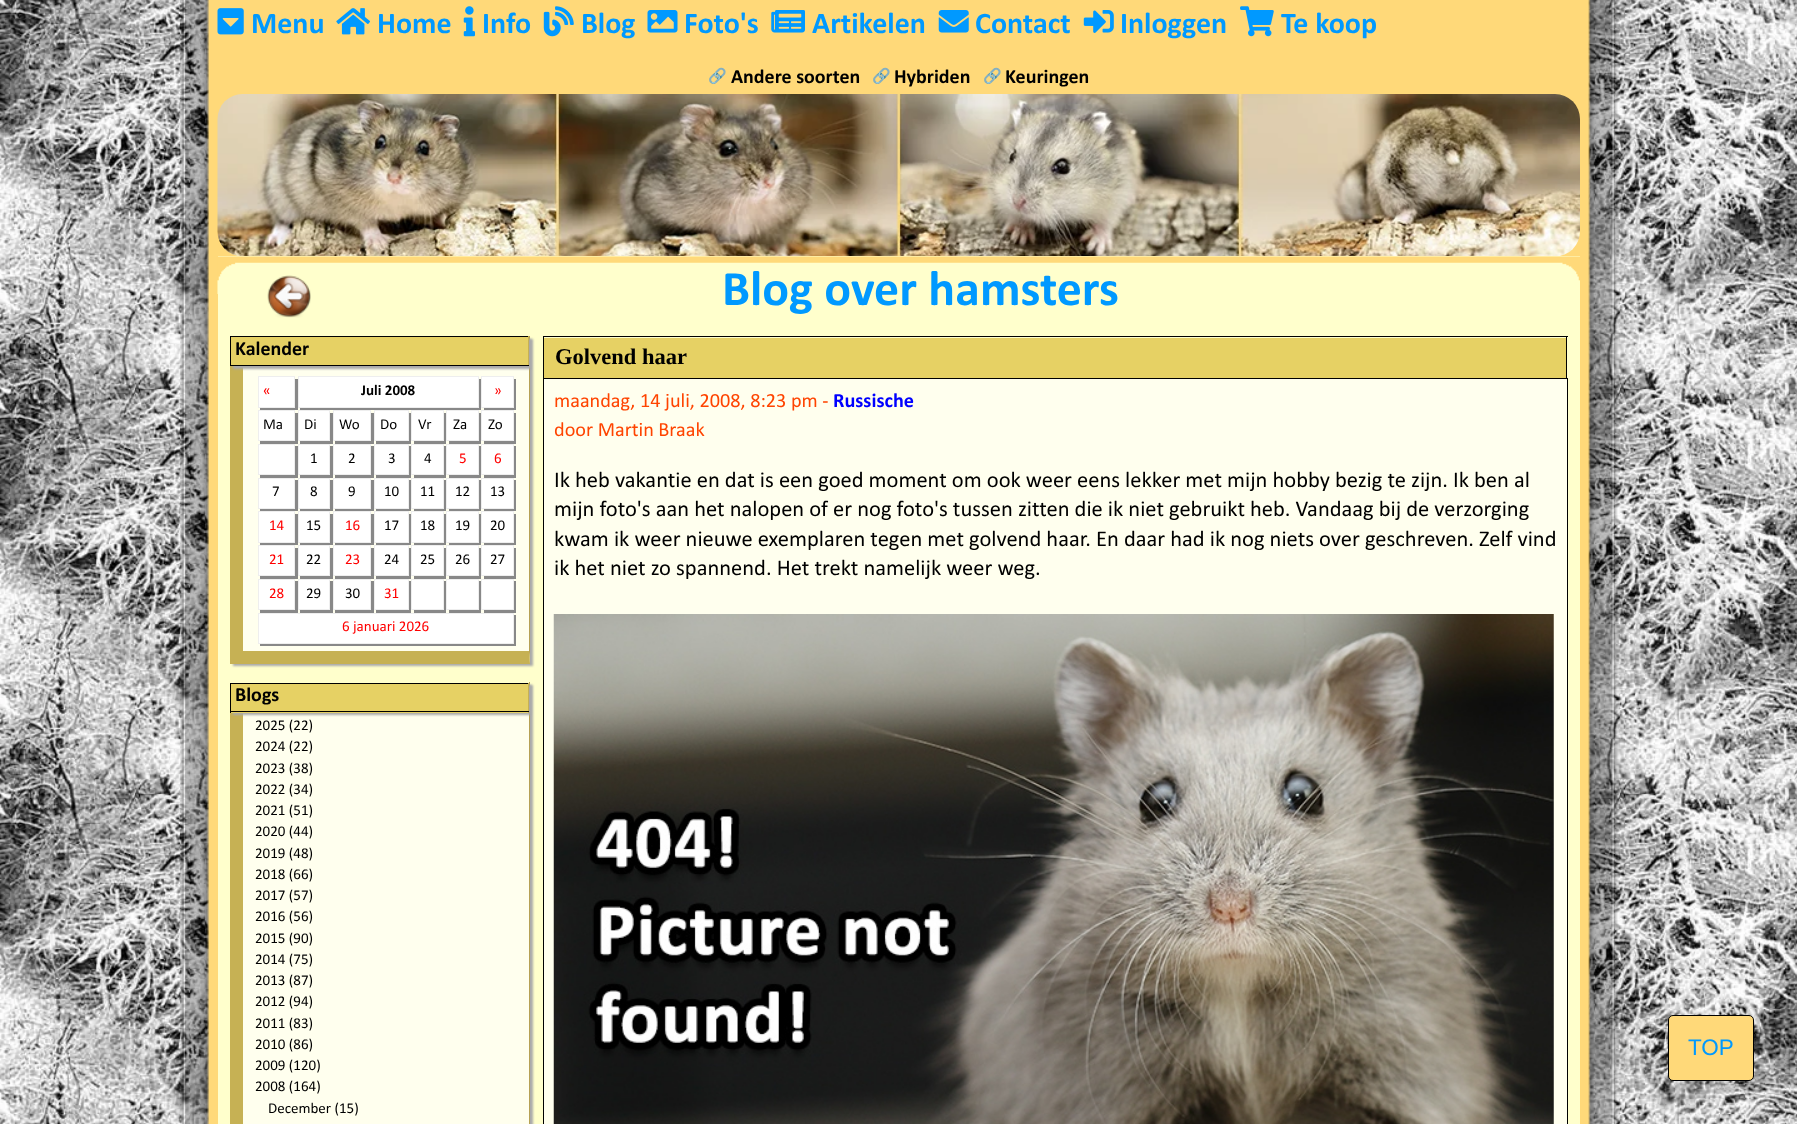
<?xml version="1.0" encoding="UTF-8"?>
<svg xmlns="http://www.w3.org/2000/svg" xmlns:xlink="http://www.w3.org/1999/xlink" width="1797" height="1124">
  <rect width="100%" height="100%" fill="#ffffff" />
  <image x="0" y="0" width="1797" height="1124" xlink:href="image1.png" />
  <image x="180" y="0" width="38" height="1124" xlink:href="image2.png" />
  <rect x="218" y="53" width="1362" height="203" fill="#ffd979" />
  <rect x="218" width="1362" height="53" fill="#ffd979" />
  <image x="217" y="8" width="27" height="27" xlink:href="image3.png" />
  <image x="336" y="8" width="34" height="27" xlink:href="image4.png" />
  <image x="463" y="6" width="12" height="31" xlink:href="image5.png" />
  <image x="543" y="6" width="31" height="31" xlink:href="image6.png" />
  <image x="647" y="10" width="31" height="23" xlink:href="image7.png" />
  <image x="771" y="10" width="34" height="23" xlink:href="image8.png" />
  <image x="938" y="10" width="31" height="23" xlink:href="image9.png" />
  <image x="1083" y="10" width="31" height="23" xlink:href="image10.png" />
  <image x="1240" y="6" width="34" height="31" xlink:href="image11.png" />
  <rect x="218" y="94" width="1362" height="162" rx="25" fill="#ffdc79" />
  <image x="217" y="94" width="1363" height="162" xlink:href="image12.png" />
  <rect x="218" y="256" width="1362" height="868" fill="#ffffcc" />
  <image x="217" y="256" width="1363" height="38" xlink:href="image13.png" />
  <image x="267" y="275" width="44" height="43" xlink:href="image14.png" />
  <rect x="233" y="339" width="300" height="327" fill="#aaaaaa" filter="blur(1px)" />
  <rect x="243" y="366" width="287" height="298" fill="#ffffee" />
  <path d="M 530 336 v 328 l -1 -13 v -315 z" fill="#b6a154" />
  <path d="M 530 664 h -300 l 12 -13 h 287 z" fill="#c6b154" />
  <rect x="230" y="366" width="13" height="298" fill="#c6b154" />
  <rect x="233" y="339" width="298" height="30" fill="#aaaaaa" filter="blur(1px)" />
  <rect x="231" y="337" width="297" height="28" fill="#e6d164" />
  <rect x="230" y="336" width="299" height="1" fill="#000000" />
  <rect x="528" y="336" width="1" height="30" fill="#c6b154" />
  <rect x="230" y="365" width="299" height="1" fill="#000000" />
  <rect x="230" y="336" width="1" height="30" fill="#000000" />
  <rect x="260" y="379" width="38" height="31" fill="#888888" filter="blur(0.5px)" />
  <rect x="258.5" y="376.5" width="36" height="31" fill="#ffffff" stroke="#eeeeee" />
  <rect x="300" y="379" width="181" height="31" fill="#888888" filter="blur(0.5px)" />
  <rect x="298.5" y="376.5" width="180" height="31" fill="#ffffff" stroke="#eeeeee" />
  <rect x="484" y="379" width="32" height="31" fill="#888888" filter="blur(0.5px)" />
  <rect x="481.5" y="376.5" width="32" height="31" fill="#ffffff" stroke="#eeeeee" />
  <rect x="260" y="413" width="38" height="31" fill="#888888" filter="blur(0.5px)" />
  <rect x="258.5" y="410.5" width="36" height="30" fill="#ffffff" stroke="#eeeeee" />
  <rect x="300" y="413" width="33" height="31" fill="#888888" filter="blur(0.5px)" />
  <rect x="298.5" y="410.5" width="31" height="30" fill="#ffffff" stroke="#eeeeee" />
  <rect x="335" y="413" width="39" height="31" fill="#888888" filter="blur(0.5px)" />
  <rect x="333.5" y="410.5" width="37" height="30" fill="#ffffff" stroke="#eeeeee" />
  <rect x="376" y="413" width="35" height="31" fill="#888888" filter="blur(0.5px)" />
  <rect x="374.5" y="410.5" width="34" height="30" fill="#ffffff" stroke="#eeeeee" />
  <rect x="414" y="413" width="32" height="31" fill="#888888" filter="blur(0.5px)" />
  <rect x="411.5" y="410.5" width="32" height="30" fill="#ffffff" stroke="#eeeeee" />
  <rect x="449" y="413" width="32" height="31" fill="#888888" filter="blur(0.5px)" />
  <rect x="446.5" y="410.5" width="32" height="30" fill="#ffffff" stroke="#eeeeee" />
  <rect x="484" y="413" width="32" height="31" fill="#888888" filter="blur(0.5px)" />
  <rect x="481.5" y="410.5" width="32" height="30" fill="#ffffff" stroke="#eeeeee" />
  <rect x="260" y="446" width="38" height="32" fill="#888888" filter="blur(0.5px)" />
  <rect x="258.5" y="444.5" width="36" height="30" fill="#ffffff" stroke="#eeeeee" />
  <rect x="300" y="446" width="33" height="32" fill="#888888" filter="blur(0.5px)" />
  <rect x="298.5" y="444.5" width="31" height="30" fill="#ffffff" stroke="#eeeeee" />
  <rect x="335" y="446" width="39" height="32" fill="#888888" filter="blur(0.5px)" />
  <rect x="333.5" y="444.5" width="37" height="30" fill="#ffffff" stroke="#eeeeee" />
  <rect x="376" y="446" width="35" height="32" fill="#888888" filter="blur(0.5px)" />
  <rect x="374.5" y="444.5" width="34" height="30" fill="#ffffff" stroke="#eeeeee" />
  <rect x="414" y="446" width="32" height="32" fill="#888888" filter="blur(0.5px)" />
  <rect x="411.5" y="444.5" width="32" height="30" fill="#ffffff" stroke="#eeeeee" />
  <rect x="449" y="446" width="32" height="32" fill="#888888" filter="blur(0.5px)" />
  <rect x="446.5" y="444.5" width="32" height="30" fill="#ffffff" stroke="#eeeeee" />
  <rect x="484" y="446" width="32" height="32" fill="#888888" filter="blur(0.5px)" />
  <rect x="481.5" y="444.5" width="32" height="30" fill="#ffffff" stroke="#eeeeee" />
  <rect x="260" y="480" width="38" height="31" fill="#888888" filter="blur(0.5px)" />
  <rect x="258.5" y="478.5" width="36" height="30" fill="#ffffff" stroke="#eeeeee" />
  <rect x="300" y="480" width="33" height="31" fill="#888888" filter="blur(0.5px)" />
  <rect x="298.5" y="478.5" width="31" height="30" fill="#ffffff" stroke="#eeeeee" />
  <rect x="335" y="480" width="39" height="31" fill="#888888" filter="blur(0.5px)" />
  <rect x="333.5" y="478.5" width="37" height="30" fill="#ffffff" stroke="#eeeeee" />
  <rect x="376" y="480" width="35" height="31" fill="#888888" filter="blur(0.5px)" />
  <rect x="374.5" y="478.5" width="34" height="30" fill="#ffffff" stroke="#eeeeee" />
  <rect x="414" y="480" width="32" height="31" fill="#888888" filter="blur(0.5px)" />
  <rect x="411.5" y="478.5" width="32" height="30" fill="#ffffff" stroke="#eeeeee" />
  <rect x="449" y="480" width="32" height="31" fill="#888888" filter="blur(0.5px)" />
  <rect x="446.5" y="478.5" width="32" height="30" fill="#ffffff" stroke="#eeeeee" />
  <rect x="484" y="480" width="32" height="31" fill="#888888" filter="blur(0.5px)" />
  <rect x="481.5" y="478.5" width="32" height="30" fill="#ffffff" stroke="#eeeeee" />
  <rect x="260" y="514" width="38" height="31" fill="#888888" filter="blur(0.5px)" />
  <rect x="258.5" y="511.5" width="36" height="31" fill="#ffffff" stroke="#eeeeee" />
  <rect x="300" y="514" width="33" height="31" fill="#888888" filter="blur(0.5px)" />
  <rect x="298.5" y="511.5" width="31" height="31" fill="#ffffff" stroke="#eeeeee" />
  <rect x="335" y="514" width="39" height="31" fill="#888888" filter="blur(0.5px)" />
  <rect x="333.5" y="511.5" width="37" height="31" fill="#ffffff" stroke="#eeeeee" />
  <rect x="376" y="514" width="35" height="31" fill="#888888" filter="blur(0.5px)" />
  <rect x="374.5" y="511.5" width="34" height="31" fill="#ffffff" stroke="#eeeeee" />
  <rect x="414" y="514" width="32" height="31" fill="#888888" filter="blur(0.5px)" />
  <rect x="411.5" y="511.5" width="32" height="31" fill="#ffffff" stroke="#eeeeee" />
  <rect x="449" y="514" width="32" height="31" fill="#888888" filter="blur(0.5px)" />
  <rect x="446.5" y="511.5" width="32" height="31" fill="#ffffff" stroke="#eeeeee" />
  <rect x="484" y="514" width="32" height="31" fill="#888888" filter="blur(0.5px)" />
  <rect x="481.5" y="511.5" width="32" height="31" fill="#ffffff" stroke="#eeeeee" />
  <rect x="260" y="548" width="38" height="31" fill="#888888" filter="blur(0.5px)" />
  <rect x="258.5" y="545.5" width="36" height="30" fill="#ffffff" stroke="#eeeeee" />
  <rect x="300" y="548" width="33" height="31" fill="#888888" filter="blur(0.5px)" />
  <rect x="298.5" y="545.5" width="31" height="30" fill="#ffffff" stroke="#eeeeee" />
  <rect x="335" y="548" width="39" height="31" fill="#888888" filter="blur(0.5px)" />
  <rect x="333.5" y="545.5" width="37" height="30" fill="#ffffff" stroke="#eeeeee" />
  <rect x="376" y="548" width="35" height="31" fill="#888888" filter="blur(0.5px)" />
  <rect x="374.5" y="545.5" width="34" height="30" fill="#ffffff" stroke="#eeeeee" />
  <rect x="414" y="548" width="32" height="31" fill="#888888" filter="blur(0.5px)" />
  <rect x="411.5" y="545.5" width="32" height="30" fill="#ffffff" stroke="#eeeeee" />
  <rect x="449" y="548" width="32" height="31" fill="#888888" filter="blur(0.5px)" />
  <rect x="446.5" y="545.5" width="32" height="30" fill="#ffffff" stroke="#eeeeee" />
  <rect x="484" y="548" width="32" height="31" fill="#888888" filter="blur(0.5px)" />
  <rect x="481.5" y="545.5" width="32" height="30" fill="#ffffff" stroke="#eeeeee" />
  <rect x="260" y="581" width="38" height="32" fill="#888888" filter="blur(0.5px)" />
  <rect x="258.5" y="579.5" width="36" height="30" fill="#ffffff" stroke="#eeeeee" />
  <rect x="300" y="581" width="33" height="32" fill="#888888" filter="blur(0.5px)" />
  <rect x="298.5" y="579.5" width="31" height="30" fill="#ffffff" stroke="#eeeeee" />
  <rect x="335" y="581" width="39" height="32" fill="#888888" filter="blur(0.5px)" />
  <rect x="333.5" y="579.5" width="37" height="30" fill="#ffffff" stroke="#eeeeee" />
  <rect x="376" y="581" width="35" height="32" fill="#888888" filter="blur(0.5px)" />
  <rect x="374.5" y="579.5" width="34" height="30" fill="#ffffff" stroke="#eeeeee" />
  <rect x="414" y="581" width="32" height="32" fill="#888888" filter="blur(0.5px)" />
  <rect x="411.5" y="579.5" width="32" height="30" fill="#ffffff" stroke="#eeeeee" />
  <rect x="449" y="581" width="32" height="32" fill="#888888" filter="blur(0.5px)" />
  <rect x="446.5" y="579.5" width="32" height="30" fill="#ffffff" stroke="#eeeeee" />
  <rect x="484" y="581" width="32" height="32" fill="#888888" filter="blur(0.5px)" />
  <rect x="481.5" y="579.5" width="32" height="30" fill="#ffffff" stroke="#eeeeee" />
  <rect x="260" y="615" width="256" height="31" fill="#888888" filter="blur(0.5px)" />
  <rect x="258.5" y="613.5" width="255" height="30" fill="#ffffff" stroke="#eeeeee" />
  <rect x="233" y="685" width="300" height="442" fill="#aaaaaa" filter="blur(1px)" />
  <rect x="243" y="713" width="286" height="411" fill="#ffffee" />
  <path d="M 530 682 v 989 l -1 -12 v -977 z" fill="#b6a154" />
  <rect x="230" y="713" width="13" height="411" fill="#c6b154" />
  <rect x="233" y="685" width="298" height="30" fill="#aaaaaa" filter="blur(1px)" />
  <rect x="231" y="684" width="297" height="29" fill="#e6d164" />
  <rect x="230" y="683" width="299" height="1" fill="#000000" />
  <rect x="528" y="683" width="1" height="30" fill="#c6b154" />
  <rect x="230" y="711" width="299" height="1" fill="#000000" />
  <rect x="230" y="683" width="1" height="30" fill="#000000" />
  <rect x="544" y="338" width="1022" height="40" fill="#e6d164" />
  <rect x="543" y="336" width="1025" height="1" fill="#000000" />
  <rect x="1566" y="336" width="1" height="42" fill="#000000" />
  <rect x="543" y="336" width="1" height="42" fill="#000000" />
  <rect x="543.5" y="378.5" width="1024" height="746" fill="#ffffee" stroke="#000000" />
  <image x="553" y="614" width="1001" height="510" xlink:href="image15.png" />
  <image x="1580" y="0" width="38" height="1124" xlink:href="image16.png" />
  <rect x="1668.5" y="1015.5" width="85" height="65" rx="4.5" fill="#ffd979" stroke="#000000" />
  <text x="251" y="33" style="font-family: Calibri; font-size: 30px; font-weight: bold; fill: #0099ff">Menu</text>
  <text x="377" y="33" style="font-family: Calibri; font-size: 30px; font-weight: bold; fill: #0099ff">Home</text>
  <text x="482" y="33" style="font-family: Calibri; font-size: 30px; font-weight: bold; fill: #0099ff">Info</text>
  <text x="581" y="33" style="font-family: Calibri; font-size: 30px; font-weight: bold; fill: #0099ff">Blog</text>
  <text x="684" y="33" style="font-family: Calibri; font-size: 30px; font-weight: bold; fill: #0099ff">Foto's</text>
  <text x="812" y="33" style="font-family: Calibri; font-size: 30px; font-weight: bold; fill: #0099ff">Artikelen</text>
  <text x="975" y="33" style="font-family: Calibri; font-size: 30px; font-weight: bold; fill: #0099ff">Contact</text>
  <text x="1120" y="33" style="font-family: Calibri; font-size: 30px; font-weight: bold; fill: #0099ff">Inloggen</text>
  <text x="1281" y="33" style="font-family: Calibri; font-size: 30px; font-weight: bold; fill: #0099ff">Te koop</text>
  <text x="708" y="81" style="font-family: Noto Color Emoji; font-size: 15px; font-weight: bold; fill: #0099ff">🔗</text>
  <text x="731" y="83" style="font-family: Calibri; font-size: 20px; font-weight: bold; fill: #000000">Andere soorten</text>
  <text x="872" y="81" style="font-family: Noto Color Emoji; font-size: 15px; font-weight: bold; fill: #0099ff">🔗</text>
  <text x="894" y="83" style="font-family: Calibri; font-size: 20px; font-weight: bold; fill: #000000">Hybriden</text>
  <text x="983" y="81" style="font-family: Noto Color Emoji; font-size: 15px; font-weight: bold; fill: #0099ff">🔗</text>
  <text x="1005" y="83" style="font-family: Calibri; font-size: 20px; font-weight: bold; fill: #000000">Keuringen</text>
  <text x="722" y="305" style="font-family: Calibri; font-size: 50px; font-weight: bold; fill: #0099ff">Blog over hamsters</text>
  <text x="235" y="355" style="font-family: Calibri; font-size: 20px; font-weight: bold; fill: #000000">Kalender</text>
  <text x="263" y="395" style="font-family: Calibri; font-size: 15px; fill: #ff0000">«</text>
  <text x="361" y="395" style="font-family: Calibri; font-size: 15px; font-weight: bold; fill: #000000">Juli 2008</text>
  <text x="494" y="395" style="font-family: Calibri; font-size: 15px; fill: #ff0000">»</text>
  <text x="263" y="429" style="font-family: Calibri; font-size: 15px; fill: #000000">Ma</text>
  <text x="304" y="429" style="font-family: Calibri; font-size: 15px; fill: #000000">Di</text>
  <text x="339" y="429" style="font-family: Calibri; font-size: 15px; fill: #000000">Wo</text>
  <text x="380" y="429" style="font-family: Calibri; font-size: 15px; fill: #000000">Do</text>
  <text x="418" y="429" style="font-family: Calibri; font-size: 15px; fill: #000000">Vr</text>
  <text x="453" y="429" style="font-family: Calibri; font-size: 15px; fill: #000000">Za</text>
  <text x="488" y="429" style="font-family: Calibri; font-size: 15px; fill: #000000">Zo</text>
  <text x="310" y="463" style="font-family: Calibri; font-size: 15px; fill: #000000">1</text>
  <text x="348" y="463" style="font-family: Calibri; font-size: 15px; fill: #000000">2</text>
  <text x="388" y="463" style="font-family: Calibri; font-size: 15px; fill: #000000">3</text>
  <text x="424" y="463" style="font-family: Calibri; font-size: 15px; fill: #000000">4</text>
  <text x="459" y="463" style="font-family: Calibri; font-size: 15px; fill: #ff0000">5</text>
  <text x="494" y="463" style="font-family: Calibri; font-size: 15px; fill: #ff0000">6</text>
  <text x="272" y="496" style="font-family: Calibri; font-size: 15px; fill: #000000">7</text>
  <text x="310" y="496" style="font-family: Calibri; font-size: 15px; fill: #000000">8</text>
  <text x="348" y="496" style="font-family: Calibri; font-size: 15px; fill: #000000">9</text>
  <text x="384" y="496" style="font-family: Calibri; font-size: 15px; fill: #000000">10</text>
  <text x="420" y="496" style="font-family: Calibri; font-size: 15px; fill: #000000">11</text>
  <text x="455" y="496" style="font-family: Calibri; font-size: 15px; fill: #000000">12</text>
  <text x="490" y="496" style="font-family: Calibri; font-size: 15px; fill: #000000">13</text>
  <text x="269" y="530" style="font-family: Calibri; font-size: 15px; fill: #ff0000">14</text>
  <text x="306" y="530" style="font-family: Calibri; font-size: 15px; fill: #000000">15</text>
  <text x="345" y="530" style="font-family: Calibri; font-size: 15px; fill: #ff0000">16</text>
  <text x="384" y="530" style="font-family: Calibri; font-size: 15px; fill: #000000">17</text>
  <text x="420" y="530" style="font-family: Calibri; font-size: 15px; fill: #000000">18</text>
  <text x="455" y="530" style="font-family: Calibri; font-size: 15px; fill: #000000">19</text>
  <text x="490" y="530" style="font-family: Calibri; font-size: 15px; fill: #000000">20</text>
  <text x="269" y="564" style="font-family: Calibri; font-size: 15px; fill: #ff0000">21</text>
  <text x="306" y="564" style="font-family: Calibri; font-size: 15px; fill: #000000">22</text>
  <text x="345" y="564" style="font-family: Calibri; font-size: 15px; fill: #ff0000">23</text>
  <text x="384" y="564" style="font-family: Calibri; font-size: 15px; fill: #000000">24</text>
  <text x="420" y="564" style="font-family: Calibri; font-size: 15px; fill: #000000">25</text>
  <text x="455" y="564" style="font-family: Calibri; font-size: 15px; fill: #000000">26</text>
  <text x="490" y="564" style="font-family: Calibri; font-size: 15px; fill: #000000">27</text>
  <text x="269" y="598" style="font-family: Calibri; font-size: 15px; fill: #ff0000">28</text>
  <text x="306" y="598" style="font-family: Calibri; font-size: 15px; fill: #000000">29</text>
  <text x="345" y="598" style="font-family: Calibri; font-size: 15px; fill: #000000">30</text>
  <text x="384" y="598" style="font-family: Calibri; font-size: 15px; fill: #ff0000">31</text>
  <text x="342" y="631" style="font-family: Calibri; font-size: 15px; fill: #ff0000">6 januari 2026</text>
  <text x="235" y="701" style="font-family: Calibri; font-size: 20px; font-weight: bold; fill: #000000">Blogs</text>
  <text x="255" y="730" style="font-family: Calibri; font-size: 15px; fill: #000000">2025 (22)</text>
  <text x="255" y="751" style="font-family: Calibri; font-size: 15px; fill: #000000">2024 (22)</text>
  <text x="255" y="773" style="font-family: Calibri; font-size: 15px; fill: #000000">2023 (38)</text>
  <text x="255" y="794" style="font-family: Calibri; font-size: 15px; fill: #000000">2022 (34)</text>
  <text x="255" y="815" style="font-family: Calibri; font-size: 15px; fill: #000000">2021 (51)</text>
  <text x="255" y="836" style="font-family: Calibri; font-size: 15px; fill: #000000">2020 (44)</text>
  <text x="255" y="858" style="font-family: Calibri; font-size: 15px; fill: #000000">2019 (48)</text>
  <text x="255" y="879" style="font-family: Calibri; font-size: 15px; fill: #000000">2018 (66)</text>
  <text x="255" y="900" style="font-family: Calibri; font-size: 15px; fill: #000000">2017 (57)</text>
  <text x="255" y="921" style="font-family: Calibri; font-size: 15px; fill: #000000">2016 (56)</text>
  <text x="255" y="943" style="font-family: Calibri; font-size: 15px; fill: #000000">2015 (90)</text>
  <text x="255" y="964" style="font-family: Calibri; font-size: 15px; fill: #000000">2014 (75)</text>
  <text x="255" y="985" style="font-family: Calibri; font-size: 15px; fill: #000000">2013 (87)</text>
  <text x="255" y="1006" style="font-family: Calibri; font-size: 15px; fill: #000000">2012 (94)</text>
  <text x="255" y="1028" style="font-family: Calibri; font-size: 15px; fill: #000000">2011 (83)</text>
  <text x="255" y="1049" style="font-family: Calibri; font-size: 15px; fill: #000000">2010 (86)</text>
  <text x="255" y="1070" style="font-family: Calibri; font-size: 15px; fill: #000000">2009 (120)</text>
  <text x="255" y="1091" style="font-family: Calibri; font-size: 15px; fill: #000000">2008 (164)</text>
  <text x="268" y="1113" style="font-family: Calibri; font-size: 15px; fill: #000000">December (15)</text>
  <text x="555" y="364" style="font-family: Liberation Serif; font-size: 22.5px; font-weight: bold; fill: #000000">Golvend haar</text>
  <text x="554" y="407" style="font-family: Calibri; font-size: 20.25px; fill: #ff4400">maandag, 14 juli, 2008, 8:23 pm -</text>
  <text x="833" y="407" style="font-family: Calibri; font-size: 20.25px; font-weight: bold; fill: #0000ff">Russische</text>
  <text x="554" y="436" style="font-family: Calibri; font-size: 20.25px; fill: #ff4400">door Martin Braak</text>
  <text x="554" y="487" style="font-family: Calibri; font-size: 22.5px; fill: #000000">Ik heb vakantie en dat is een goed moment om ook weer eens lekker met mijn hobby bezig te zijn. Ik ben al</text>
  <text x="554" y="516" style="font-family: Calibri; font-size: 22.5px; fill: #000000">mijn foto's aan het nalopen of er nog foto's tussen zitten die ik niet gebruikt heb. Vandaag bij de verzorging</text>
  <text x="554" y="546" style="font-family: Calibri; font-size: 22.5px; fill: #000000">kwam ik weer nieuwe exemplaren tegen met golvend haar. En daar had ik nog niets over geschreven. Zelf vind</text>
  <text x="554" y="575" style="font-family: Calibri; font-size: 22.5px; fill: #000000">ik het niet zo spannend. Het trekt namelijk weer weg.</text>
  <text x="1688" y="1055" style="font-family: Liberation Sans; font-size: 22.5px; fill: #0099ff">TOP</text>
</svg>
